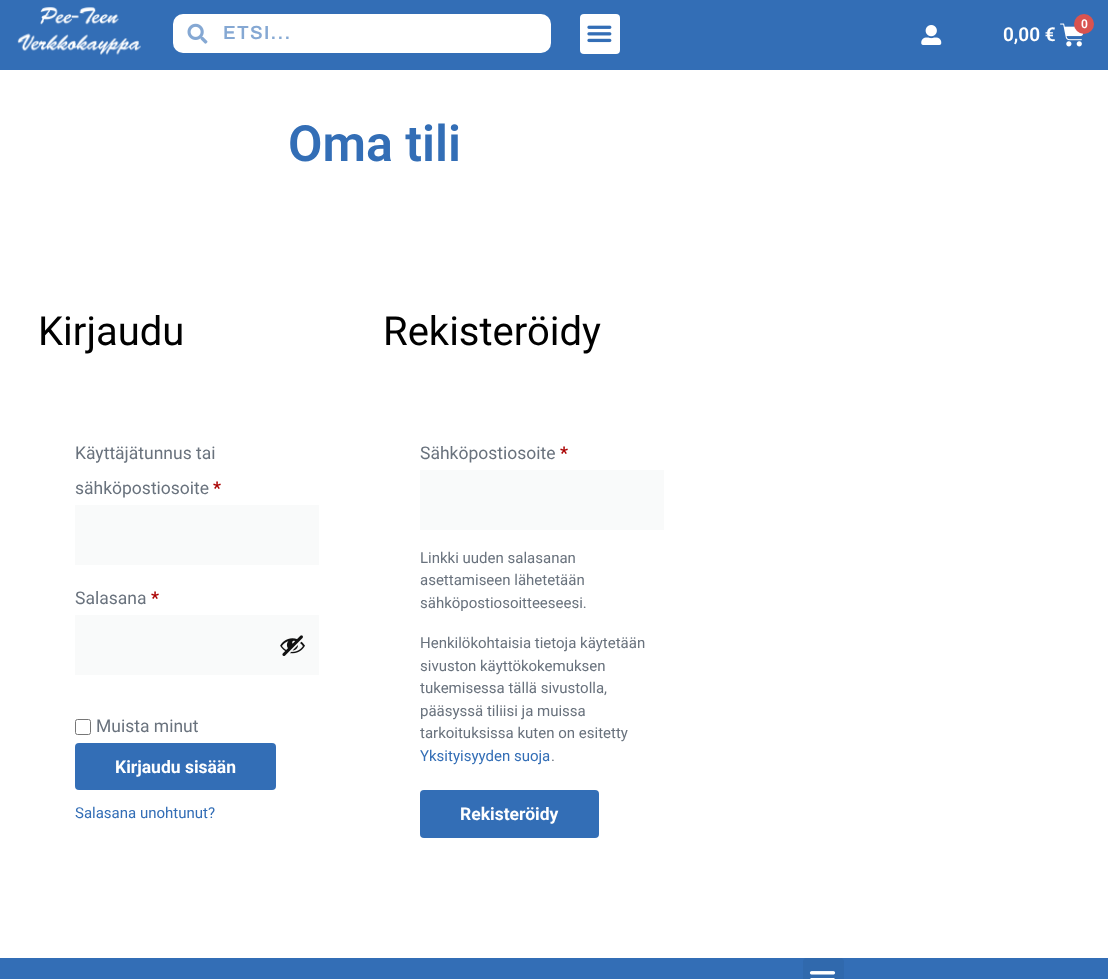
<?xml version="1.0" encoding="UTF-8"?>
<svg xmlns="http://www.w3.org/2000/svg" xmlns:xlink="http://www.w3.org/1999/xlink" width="1108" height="979">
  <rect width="100%" height="100%" fill="#ffffff" />
  <rect width="1108" height="70" fill="#336eb6" />
  <image x="17" y="7" width="124" height="48" xlink:href="image1.png" />
  <rect x="173" y="14" width="378" height="39" rx="10" fill="#ffffff" />
  <image x="187" y="23" width="21" height="21" xlink:href="image2.png" />
  <rect x="580" y="14" width="40" height="40" rx="4" fill="#ffffff" />
  <image x="587" y="25" width="25" height="18" xlink:href="image3.png" />
  <image x="921" y="25" width="21" height="20" xlink:href="image4.png" />
  <image x="1060" y="23" width="24" height="24" xlink:href="image5.png" />
  <circle cx="1084" cy="24" r="10" fill="#d9534f" />
  <rect x="75" y="505" width="244" height="60" fill="#f9fafa" />
  <rect x="75" y="615" width="244" height="60" fill="#f9fafa" />
  <image x="280" y="635" width="25" height="21" xlink:href="image6.png" />
  <rect x="75.5" y="719.5" width="15" height="15" rx="2" fill="none" stroke="#767676" />
  <rect x="75" y="743" width="201" height="47" rx="4" fill="#336eb6" />
  <rect x="420" y="470" width="244" height="60" fill="#f9fafa" />
  <rect x="420" y="790" width="179" height="48" rx="4" fill="#336eb6" />
  <rect y="958" width="1108" height="21" fill="#336eb6" />
  <rect x="803" y="958" width="41" height="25" rx="4" fill="#3069ad" />
  <image x="809" y="971" width="27" height="8" xlink:href="image7.png" />
  <text x="223" y="39" style="font-family: Archivo; font-size: 19px; font-weight: 600; letter-spacing: 1.25px; fill: #85a8d3">ETSI...</text>
  <text x="1081" y="28" style="font-family: Roboto; font-size: 12px; font-weight: 600; fill: #ffffff">0</text>
  <text x="1003" y="41" style="font-family: Roboto; font-size: 19px; font-weight: 600; fill: #ffffff">0,00 €</text>
  <text x="288" y="161" style="font-family: Roboto; font-size: 50px; font-weight: 600; fill: #336eb6">Oma tili</text>
  <text x="38" y="345" style="font-family: Roboto; font-size: 40px; fill: #000000">Kirjaudu</text>
  <text x="75" y="459" style="font-family: Roboto; font-size: 17.5px; fill: #69727d">Käyttäjätunnus tai</text>
  <text x="75" y="494" style="font-family: Roboto; font-size: 17.5px; fill: #69727d">sähköpostiosoite</text>
  <text x="213" y="494" style="font-family: Roboto; font-size: 17.5px; font-weight: bold; fill: #aa0000">*</text>
  <text x="75" y="604" style="font-family: Roboto; font-size: 17.5px; fill: #69727d">Salasana</text>
  <text x="151" y="604" style="font-family: Roboto; font-size: 17.5px; font-weight: bold; fill: #aa0000">*</text>
  <text x="96" y="732" style="font-family: Roboto; font-size: 17.5px; fill: #69727d">Muista minut</text>
  <text x="115" y="773" style="font-family: Roboto; font-size: 17.5px; font-weight: bold; fill: #ffffff">Kirjaudu sisään</text>
  <text x="75" y="818" style="font-family: Roboto; font-size: 15px; fill: #336eb6">Salasana unohtunut?</text>
  <text x="383" y="345" style="font-family: Roboto; font-size: 40px; fill: #000000">Rekisteröidy</text>
  <text x="420" y="459" style="font-family: Roboto; font-size: 17.5px; fill: #69727d">Sähköpostiosoite</text>
  <text x="560" y="459" style="font-family: Roboto; font-size: 17.5px; font-weight: bold; fill: #aa0000">*</text>
  <text x="420" y="563" style="font-family: Roboto; font-size: 15px; fill: #69727d">Linkki uuden salasanan</text>
  <text x="420" y="585" style="font-family: Roboto; font-size: 15px; fill: #69727d">asettamiseen lähetetään</text>
  <text x="420" y="608" style="font-family: Roboto; font-size: 15px; fill: #69727d">sähköpostiosoitteeseesi.</text>
  <text x="420" y="648" style="font-family: Roboto; font-size: 15px; fill: #69727d">Henkilökohtaisia tietoja käytetään</text>
  <text x="420" y="671" style="font-family: Roboto; font-size: 15px; fill: #69727d">sivuston käyttökokemuksen</text>
  <text x="420" y="693" style="font-family: Roboto; font-size: 15px; fill: #69727d">tukemisessa tällä sivustolla,</text>
  <text x="420" y="716" style="font-family: Roboto; font-size: 15px; fill: #69727d">pääsyssä tiliisi ja muissa</text>
  <text x="420" y="738" style="font-family: Roboto; font-size: 15px; fill: #69727d">tarkoituksissa kuten on esitetty</text>
  <text x="420" y="761" style="font-family: Roboto; font-size: 15px; fill: #336eb6">Yksityisyyden suoja</text>
  <text x="551" y="761" style="font-family: Roboto; font-size: 15px; fill: #69727d">.</text>
  <text x="460" y="820" style="font-family: Roboto; font-size: 17.5px; font-weight: bold; fill: #ffffff">Rekisteröidy</text>
</svg>
